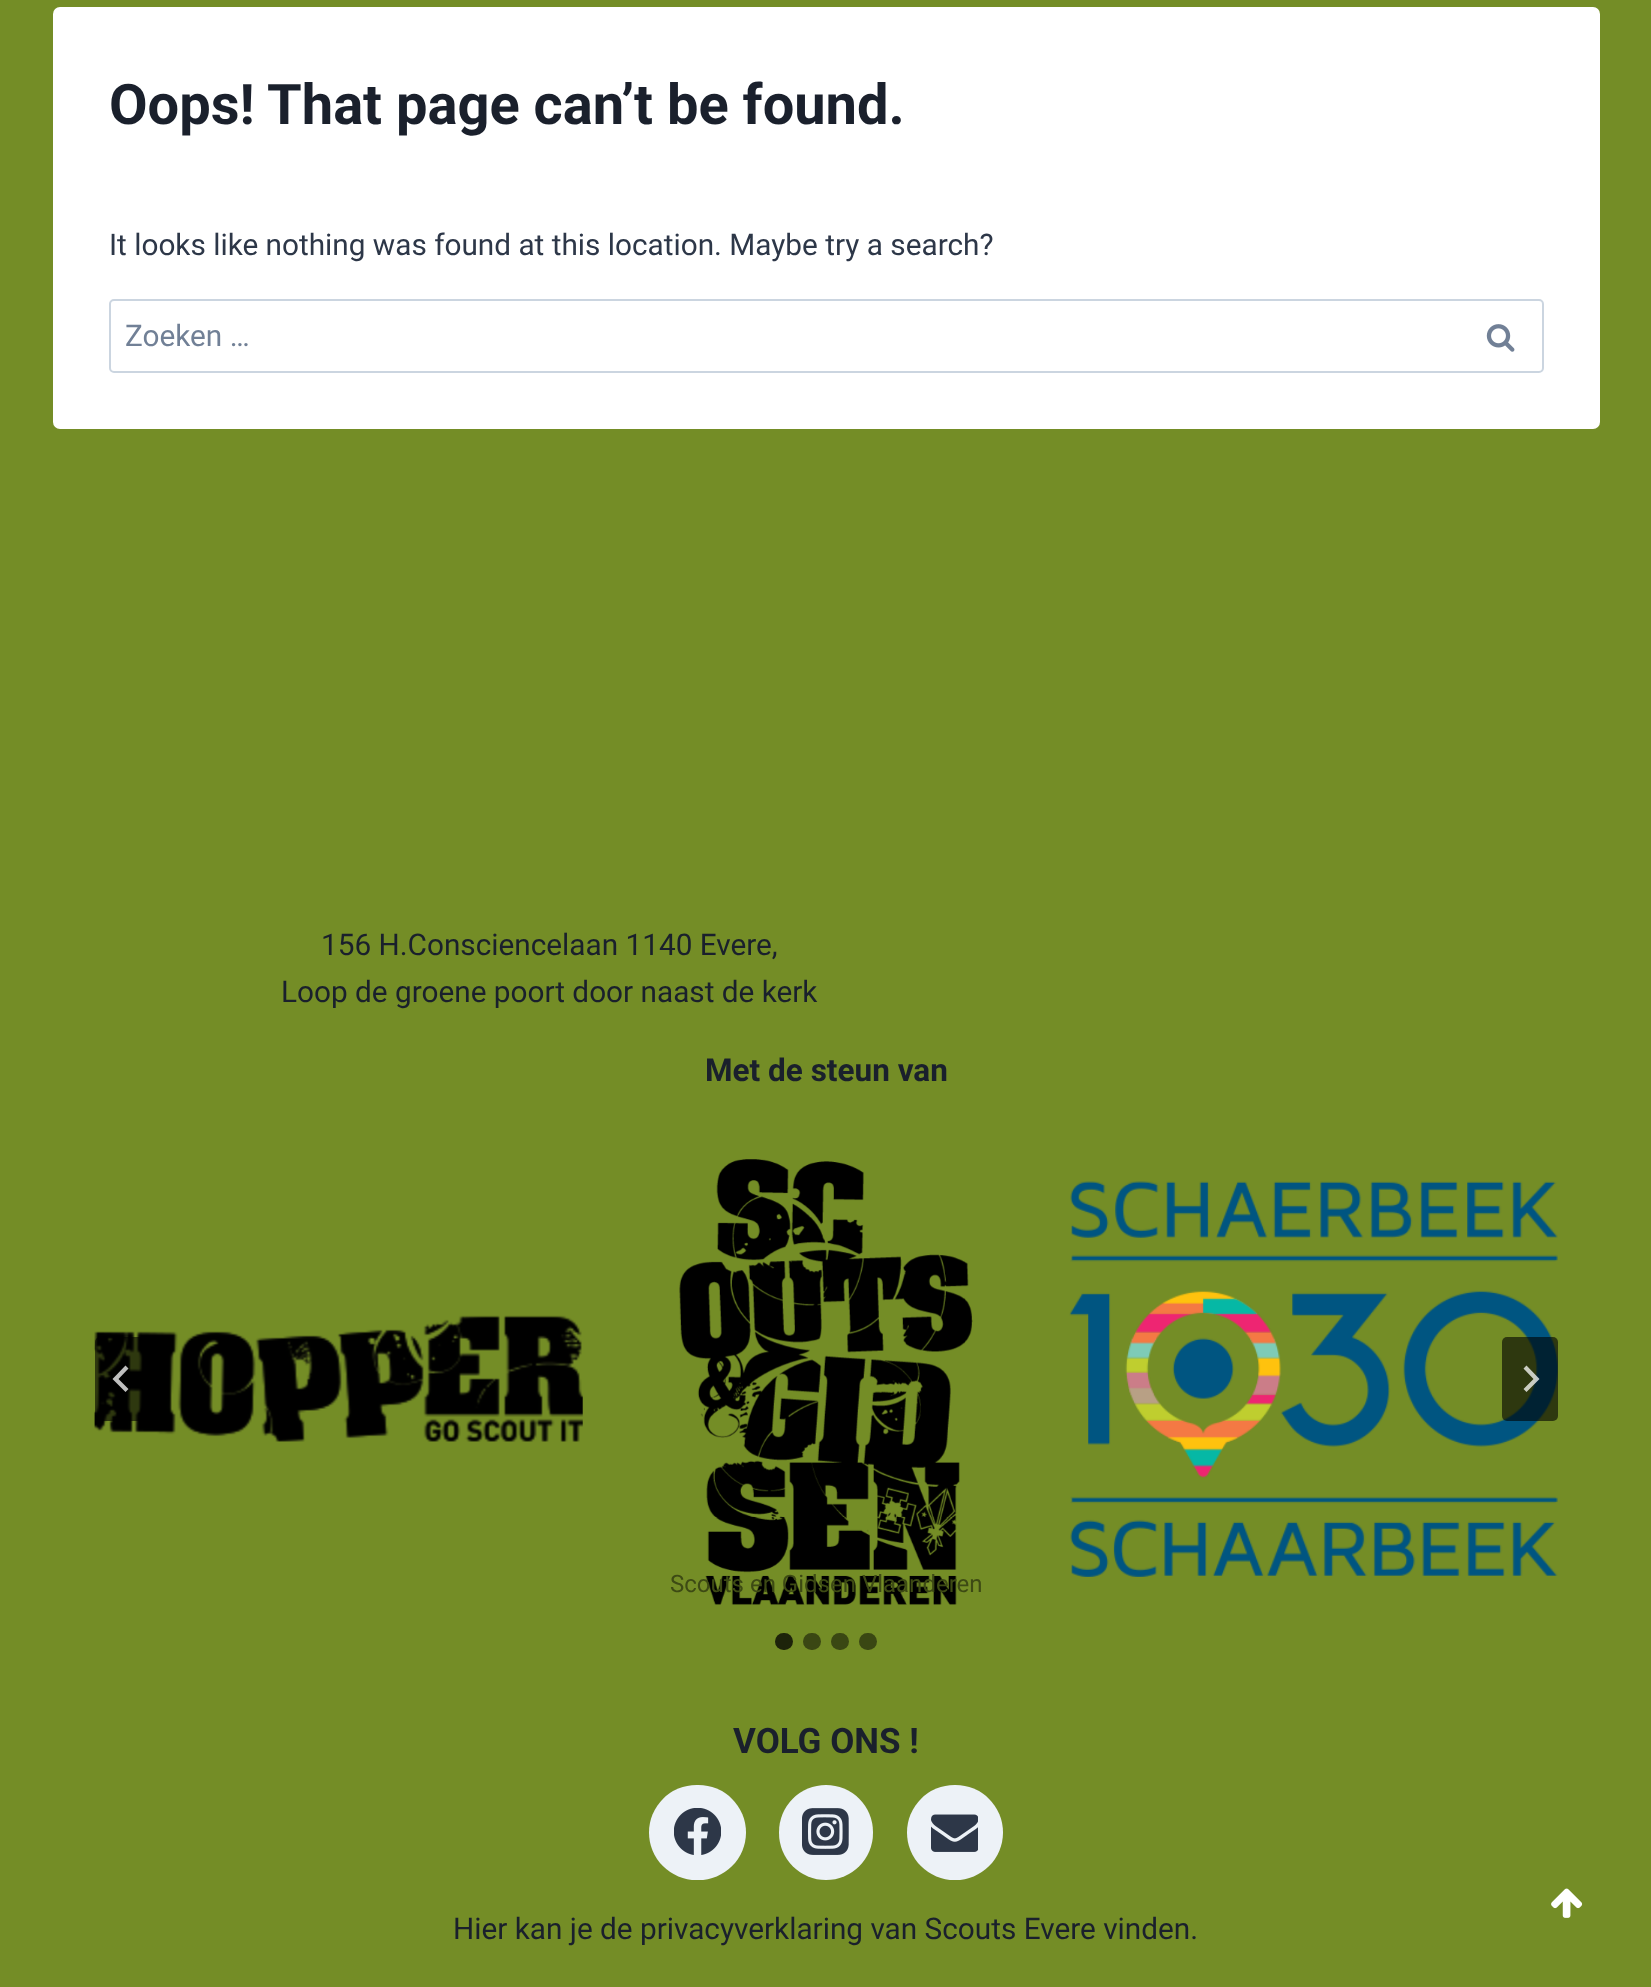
<?xml version="1.0" encoding="UTF-8"?>
<svg xmlns="http://www.w3.org/2000/svg" xmlns:xlink="http://www.w3.org/1999/xlink" width="1651" height="1987">
  <rect width="100%" height="100%" fill="#748d26" />
  <rect x="53" y="7" width="1547" height="422" rx="7" fill="#ffffff" />
  <rect x="110" y="300" width="1433" height="72" rx="4" fill="none" stroke="#cbd5e0" stroke-width="2" />
  <image x="1486" y="324" width="29" height="28" xlink:href="image1.png" />
  <image x="94" y="1315" width="489" height="127" xlink:href="image2.png" />
  <rect x="95" y="1337" width="56" height="84" rx="5" fill="#000000" fill-opacity="0.6" />
  <path d="M 125.5 1365.5 l 3 3 l -10 10.5 l 10 10 l -3 3 l -13 -13 z" fill="#bfbfbf" />
  <image x="1069" y="1181" width="489" height="396" xlink:href="image3.png" />
  <rect x="1502" y="1337" width="56" height="84" rx="5" fill="#000000" fill-opacity="0.6" />
  <path d="M 1526.5 1365.5 l -3 3 l 10 10.5 l -10 10 l 3 3 l 13 -13 z" fill="#ffffff" fill-opacity="0.75" />
  <image x="679" y="1159" width="294" height="446" xlink:href="image4.png" />
  <rect x="775" y="1633" width="18" height="17" rx="8.5" fill="#1d230a" />
  <rect x="803" y="1633" width="18" height="17" rx="8.5" fill="#3a4713" />
  <rect x="831" y="1633" width="18" height="17" rx="8.5" fill="#3a4713" />
  <rect x="859" y="1633" width="18" height="17" rx="8.5" fill="#3a4713" />
  <rect x="649" y="1785" width="97" height="95" rx="47.5" fill="#edf2f7" />
  <image x="674" y="1808" width="47" height="47" xlink:href="image5.png" />
  <rect x="779" y="1785" width="94" height="95" rx="47" fill="#edf2f7" />
  <image x="802" y="1808" width="47" height="47" xlink:href="image6.png" />
  <rect x="907" y="1785" width="96" height="95" rx="47.5" fill="#edf2f7" />
  <image x="931" y="1814" width="47" height="38" xlink:href="image7.png" />
  <image x="1551" y="1888" width="32" height="30" xlink:href="image8.png" />
  <text x="109" y="124" style="font-family: Roboto; font-size: 56px; font-weight: bold; fill: #1a202c">Oops! That page can’t be found.</text>
  <text x="109" y="255" style="font-family: Roboto; font-size: 29.75px; fill: #2d3748">It looks like nothing was found at this location. Maybe try a search?</text>
  <text x="125" y="346" style="font-family: Roboto; font-size: 29.75px; fill: #718096">Zoeken …</text>
  <text x="321" y="955" style="font-family: Roboto; font-size: 29.75px; fill: #1a202c">156 H.Consciencelaan 1140 Evere,</text>
  <text x="281" y="1002" style="font-family: Roboto; font-size: 29.75px; fill: #1a202c">Loop de groene poort door naast de kerk</text>
  <text x="705" y="1081" style="font-family: Roboto; font-size: 31.5px; font-weight: bold; fill: #1a202c">Met de steun van</text>
  <text x="670" y="1592" style="font-family: Roboto; font-size: 24px; fill: #3d4a14">Scouts en Gidsen Vlaanderen</text>
  <text x="733" y="1753" style="font-family: Roboto; font-size: 35px; font-weight: bold; fill: #1a202c">VOLG ONS !</text>
  <text x="453" y="1939" style="font-family: Roboto; font-size: 29.75px; fill: #1a202c">Hier kan je de privacyverklaring van Scouts Evere vinden.</text>
</svg>
